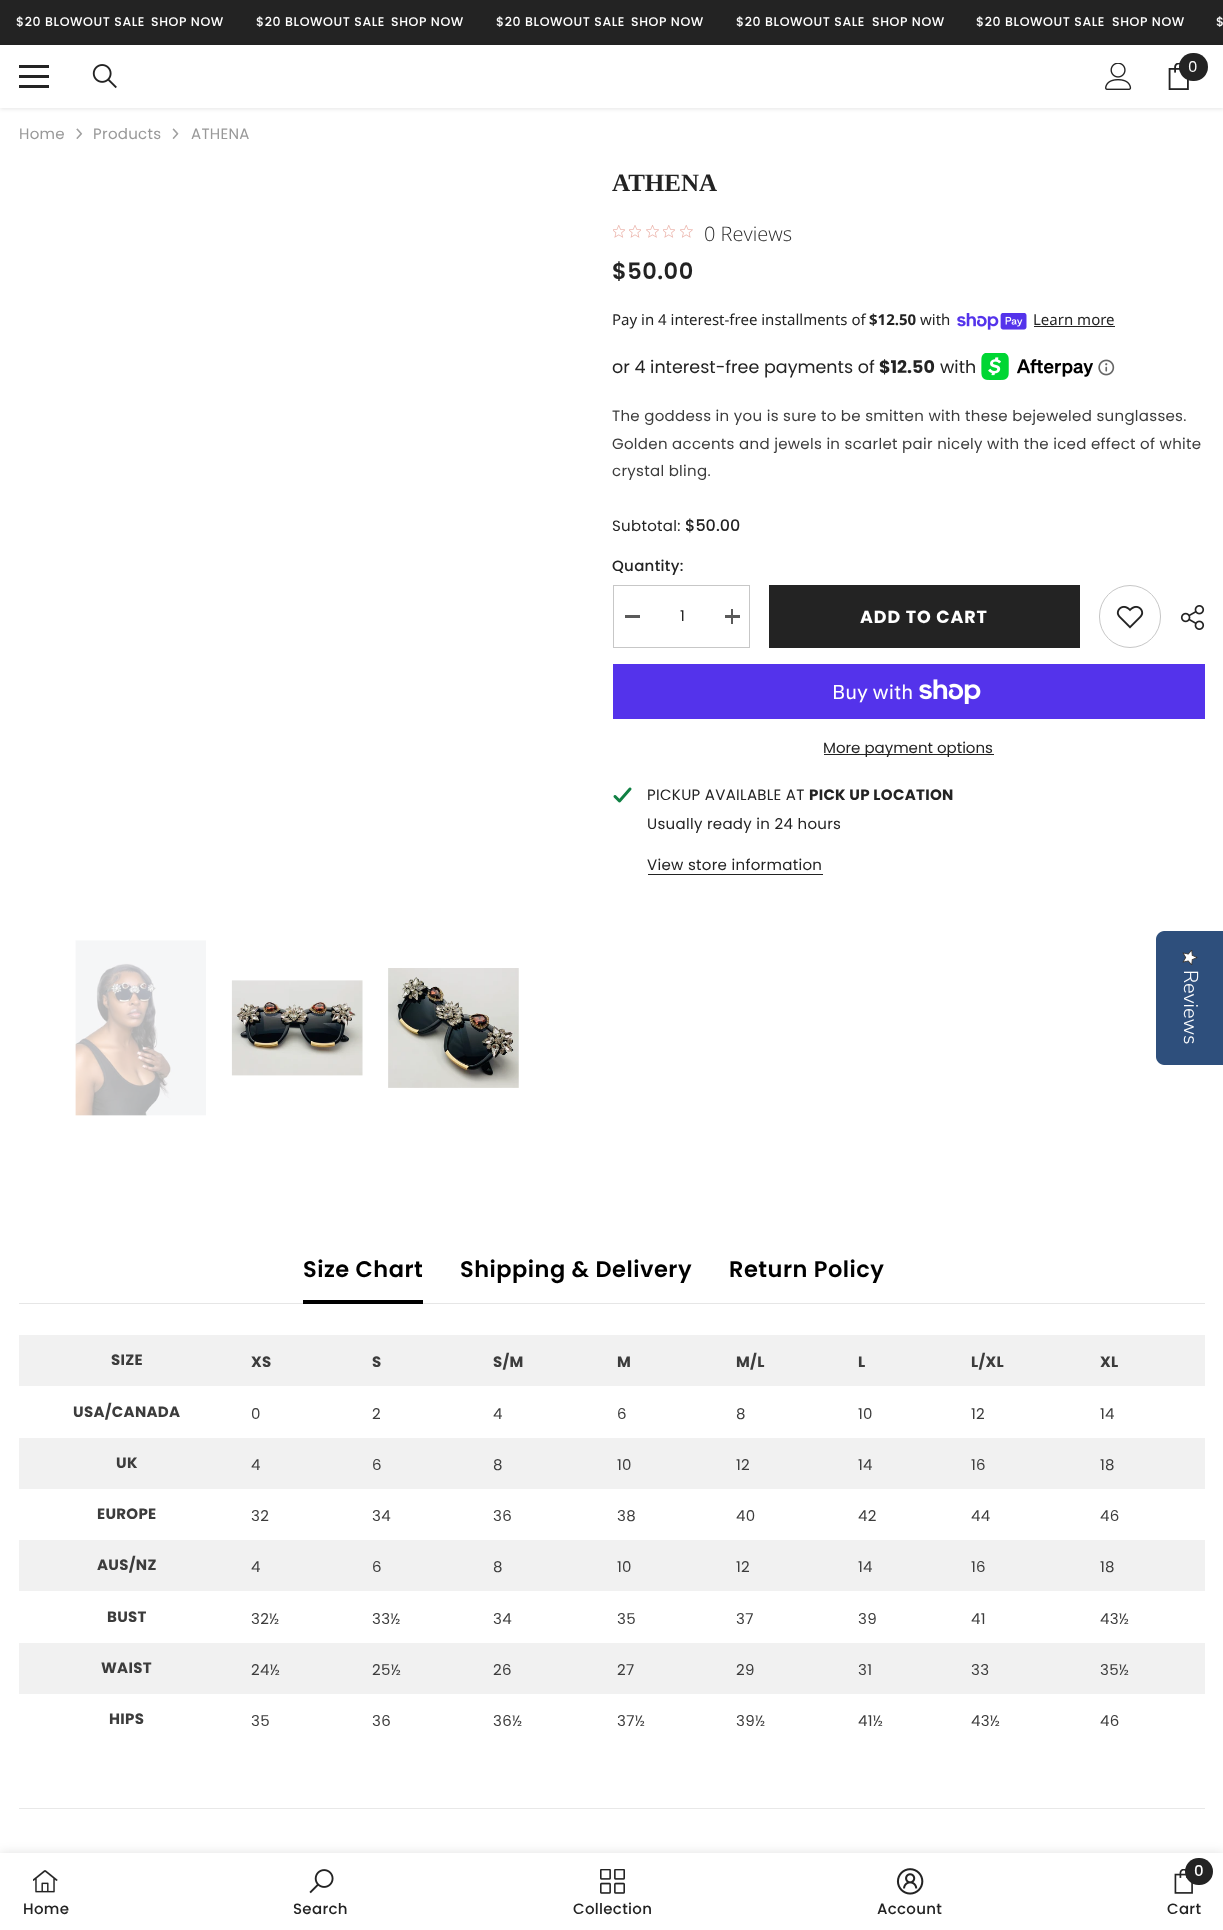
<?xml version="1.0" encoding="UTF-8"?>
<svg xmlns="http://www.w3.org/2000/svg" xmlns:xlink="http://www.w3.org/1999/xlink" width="1223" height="1930">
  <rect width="100%" height="100%" fill="#ffffff" />
  <rect width="1223" height="45" fill="#232323" />
  <rect y="46" width="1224" height="63" fill="#000000" fill-opacity="0.1" filter="blur(2px)" />
  <rect y="45" width="1223" height="63" fill="#ffffff" />
  <rect x="19" y="75" width="30" height="3" fill="#232323" />
  <rect x="19" y="65" width="30" height="3" fill="#232323" />
  <rect x="19" y="85" width="30" height="3" fill="#232323" />
  <image x="92" y="64" width="25" height="25" xlink:href="image1.png" />
  <image x="1105" y="63" width="27" height="27" xlink:href="image2.png" />
  <image x="1168" y="63" width="21" height="27" xlink:href="image3.png" />
  <rect x="1179" y="53" width="29" height="28" rx="14" fill="#232323" />
  <image x="76" y="128" width="7" height="11" xlink:href="image4.png" />
  <image x="172" y="128" width="7" height="11" xlink:href="image5.png" />
  <image x="613" y="225" width="12" height="13" xlink:href="image6.png" />
  <image x="629" y="225" width="12" height="13" xlink:href="image7.png" />
  <image x="646" y="225" width="13" height="13" xlink:href="image8.png" />
  <image x="663" y="225" width="12" height="13" xlink:href="image6.png" />
  <image x="680" y="225" width="13" height="13" xlink:href="image9.png" />
  <image x="957" y="313" width="70" height="17" xlink:href="image10.png" />
  <rect x="1034" y="326" width="81" height="1" fill="#232323" />
  <image x="981" y="353" width="112" height="27" xlink:href="image11.png" />
  <image x="1098" y="359" width="17" height="17" xlink:href="image12.png" />
  <rect x="613.5" y="585.5" width="136" height="62" fill="none" stroke="#c7c7c7" />
  <rect x="625" y="615" width="15" height="3" fill="#5a5a5a" />
  <rect x="725" y="615" width="15" height="3" fill="#5a5a5a" />
  <rect x="731" y="609" width="2" height="15" fill="#5a5a5a" />
  <rect x="769" y="585" width="311" height="63" fill="#232323" />
  <rect x="1099.5" y="585.5" width="61" height="62" rx="30.5" fill="none" stroke="#c7c7c7" />
  <image x="1116" y="605" width="28" height="24" xlink:href="image13.png" />
  <image x="1180" y="605" width="25" height="25" xlink:href="image14.png" />
  <rect x="613" y="664" width="592" height="55" fill="#5433eb" />
  <image x="919" y="679" width="62" height="25" xlink:href="image15.png" />
  <rect x="824" y="754" width="170" height="1" fill="#232323" />
  <image x="613" y="787" width="19" height="16" xlink:href="image16.png" />
  <rect x="648" y="874" width="175" height="1" fill="#232323" />
  <image x="75" y="940" width="131" height="176" xlink:href="image17.png" />
  <image x="231" y="980" width="132" height="96" xlink:href="image18.png" />
  <image x="388" y="968" width="131" height="120" xlink:href="image19.png" />
  <rect x="19" y="1303" width="1186" height="1" fill="#e6e6e6" />
  <rect x="303" y="1300" width="120" height="4" fill="#000000" />
  <rect x="19" y="1335" width="1186" height="51" fill="#f1f1f1" />
  <rect x="19" y="1438" width="1186" height="51" fill="#f1f1f1" />
  <rect x="19" y="1540" width="1186" height="51" fill="#f1f1f1" />
  <rect x="19" y="1643" width="1186" height="51" fill="#f1f1f1" />
  <rect x="19" y="1808" width="1186" height="1" fill="#e8e8e8" />
  <rect y="1853" width="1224" height="77" fill="#000000" fill-opacity="0.12" filter="blur(5.5px)" />
  <rect y="1853" width="1223" height="77" fill="#ffffff" />
  <image x="33" y="1870" width="25" height="23" xlink:href="image20.png" />
  <image x="309" y="1869" width="25" height="25" xlink:href="image21.png" />
  <image x="600" y="1869" width="25" height="25" xlink:href="image22.png" />
  <image x="896" y="1868" width="28" height="27" xlink:href="image23.png" />
  <image x="1174" y="1869" width="19" height="25" xlink:href="image24.png" />
  <rect x="1185" y="1858" width="28" height="27" rx="13.5" fill="#232323" />
  <path d="M 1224 931 v 134 h -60 c -4 0 -8 -4 -8 -8 v -118 c 0 -4 4 -8 8 -8 z" fill="#2e4f7c" />
  <image x="1182" y="950" width="16" height="15" xlink:href="image25.png" />
  <text x="16" y="26" style="font-family: Poppins; font-size: 12.5px; font-weight: 500; letter-spacing: 0.6px; fill: #ffffff">$20 BLOWOUT SALE</text>
  <text x="151" y="26" style="font-family: Poppins; font-size: 12.5px; font-weight: 500; letter-spacing: 0.6px; fill: #ffffff">SHOP NOW</text>
  <text x="256" y="26" style="font-family: Poppins; font-size: 12.5px; font-weight: 500; letter-spacing: 0.6px; fill: #ffffff">$20 BLOWOUT SALE</text>
  <text x="391" y="26" style="font-family: Poppins; font-size: 12.5px; font-weight: 500; letter-spacing: 0.6px; fill: #ffffff">SHOP NOW</text>
  <text x="496" y="26" style="font-family: Poppins; font-size: 12.5px; font-weight: 500; letter-spacing: 0.6px; fill: #ffffff">$20 BLOWOUT SALE</text>
  <text x="631" y="26" style="font-family: Poppins; font-size: 12.5px; font-weight: 500; letter-spacing: 0.6px; fill: #ffffff">SHOP NOW</text>
  <text x="736" y="26" style="font-family: Poppins; font-size: 12.5px; font-weight: 500; letter-spacing: 0.6px; fill: #ffffff">$20 BLOWOUT SALE</text>
  <text x="872" y="26" style="font-family: Poppins; font-size: 12.5px; font-weight: 500; letter-spacing: 0.6px; fill: #ffffff">SHOP NOW</text>
  <text x="976" y="26" style="font-family: Poppins; font-size: 12.5px; font-weight: 500; letter-spacing: 0.6px; fill: #ffffff">$20 BLOWOUT SALE</text>
  <text x="1112" y="26" style="font-family: Poppins; font-size: 12.5px; font-weight: 500; letter-spacing: 0.6px; fill: #ffffff">SHOP NOW</text>
  <text x="1216" y="26" style="font-family: Poppins; font-size: 12.5px; font-weight: 500; letter-spacing: 0.6px; fill: #ffffff">$</text>
  <text x="1188" y="72" style="font-family: Poppins; font-size: 15px; fill: #ffffff">0</text>
  <text x="19" y="139" style="font-family: Poppins; font-size: 15px; letter-spacing: 0.3px; fill: #999999">Home</text>
  <text x="93" y="139" style="font-family: Poppins; font-size: 15px; letter-spacing: 0.3px; fill: #999999">Products</text>
  <text x="191" y="139" style="font-family: Poppins; font-size: 15px; letter-spacing: 0.3px; fill: #999999">ATHENA</text>
  <text x="612" y="191" style="font-family: Liberation Serif; font-size: 25px; font-weight: bold; fill: #232323">ATHENA</text>
  <text x="704" y="241" style="font-family: Open Sans; font-size: 20px; font-weight: 300; fill: #2c2c2c">0 Reviews</text>
  <text x="612" y="279" style="font-family: Poppins; font-size: 22.5px; font-weight: 600; letter-spacing: 0.5px; fill: #232323">$50.00</text>
  <text x="612" y="325" style="font-family: Noto Sans; font-size: 15px; fill: #232323">Pay in 4 interest-free installments of</text>
  <text x="869" y="325" style="font-family: Noto Sans; font-size: 15px; font-weight: bold; fill: #232323">$12.50</text>
  <text x="920" y="325" style="font-family: Noto Sans; font-size: 15px; fill: #232323">with</text>
  <text x="1033" y="325" style="font-family: Noto Sans; font-size: 15px; fill: #232323">Learn more</text>
  <text x="612" y="373" style="font-family: Poppins; font-size: 17.5px; fill: #232323">or 4 interest-free payments of</text>
  <text x="879" y="373" style="font-family: Poppins; font-size: 17.5px; font-weight: bold; fill: #232323">$12.50</text>
  <text x="940" y="373" style="font-family: Poppins; font-size: 17.5px; fill: #232323">with</text>
  <text x="612" y="421" style="font-family: Poppins; font-size: 15px; letter-spacing: 0.3px; fill: #3c3c3c">The goddess in you is sure to be smitten with these bejeweled sunglasses.</text>
  <text x="612" y="449" style="font-family: Poppins; font-size: 15px; letter-spacing: 0.3px; fill: #3c3c3c">Golden accents and jewels in scarlet pair nicely with the iced effect of white</text>
  <text x="612" y="476" style="font-family: Poppins; font-size: 15px; letter-spacing: 0.3px; fill: #3c3c3c">crystal bling.</text>
  <text x="612" y="531" style="font-family: Poppins; font-size: 15px; letter-spacing: 0.3px; fill: #232323">Subtotal:</text>
  <text x="685" y="531" style="font-family: Poppins; font-size: 16px; font-weight: 500; fill: #232323">$50.00</text>
  <text x="612" y="571" style="font-family: Poppins; font-size: 15px; font-weight: 500; letter-spacing: 0.3px; fill: #232323">Quantity:</text>
  <text x="680" y="621" style="font-family: Poppins; font-size: 15px; letter-spacing: 0.3px; fill: #232323">1</text>
  <text x="860" y="623" style="font-family: Poppins; font-size: 17.5px; font-weight: bold; letter-spacing: 0.9px; fill: #ffffff">ADD TO CART</text>
  <text x="832" y="699" style="font-family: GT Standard; font-size: 20px; fill: #ffffff">Buy with</text>
  <text x="823" y="753" style="font-family: Poppins; font-size: 15px; fill: #232323">More payment options</text>
  <text x="647" y="800" style="font-family: Poppins; font-size: 15px; letter-spacing: 0.3px; fill: #232323">PICKUP AVAILABLE AT</text>
  <text x="809" y="800" style="font-family: Poppins; font-size: 15px; font-weight: bold; letter-spacing: 0.3px; fill: #232323">PICK UP LOCATION</text>
  <text x="647" y="829" style="font-family: Poppins; font-size: 15px; letter-spacing: 0.3px; fill: #232323">Usually ready in 24 hours</text>
  <text x="647" y="870" style="font-family: Poppins; font-size: 15px; letter-spacing: 0.3px; fill: #232323">View store information</text>
  <text x="303" y="1277" style="font-family: Poppins; font-size: 22.5px; font-weight: 600; letter-spacing: 0.5px; fill: #000000">Size Chart</text>
  <text x="460" y="1277" style="font-family: Poppins; font-size: 22.5px; font-weight: 600; letter-spacing: 0.5px; fill: #000000">Shipping &amp; Delivery</text>
  <text x="729" y="1277" style="font-family: Poppins; font-size: 22.5px; font-weight: 600; letter-spacing: 0.5px; fill: #000000">Return Policy</text>
  <text x="111" y="1365" style="font-family: Poppins; font-size: 15px; font-weight: bold; letter-spacing: 0.3px; fill: #3c3c3c">SIZE</text>
  <text x="251" y="1367" style="font-family: Poppins; font-size: 15px; font-weight: bold; letter-spacing: 0.3px; fill: #3c3c3c">XS</text>
  <text x="372" y="1367" style="font-family: Poppins; font-size: 15px; font-weight: bold; letter-spacing: 0.3px; fill: #3c3c3c">S</text>
  <text x="493" y="1367" style="font-family: Poppins; font-size: 15px; font-weight: bold; letter-spacing: 0.3px; fill: #3c3c3c">S/M</text>
  <text x="617" y="1367" style="font-family: Poppins; font-size: 15px; font-weight: bold; letter-spacing: 0.3px; fill: #3c3c3c">M</text>
  <text x="736" y="1367" style="font-family: Poppins; font-size: 15px; font-weight: bold; letter-spacing: 0.3px; fill: #3c3c3c">M/L</text>
  <text x="858" y="1367" style="font-family: Poppins; font-size: 15px; font-weight: bold; letter-spacing: 0.3px; fill: #3c3c3c">L</text>
  <text x="971" y="1367" style="font-family: Poppins; font-size: 15px; font-weight: bold; letter-spacing: 0.3px; fill: #3c3c3c">L/XL</text>
  <text x="1100" y="1367" style="font-family: Poppins; font-size: 15px; font-weight: bold; letter-spacing: 0.3px; fill: #3c3c3c">XL</text>
  <text x="73" y="1417" style="font-family: Poppins; font-size: 15px; font-weight: bold; letter-spacing: 0.3px; fill: #3c3c3c">USA/CANADA</text>
  <text x="251" y="1419" style="font-family: Poppins; font-size: 15px; letter-spacing: 0.3px; fill: #3c3c3c">0</text>
  <text x="372" y="1419" style="font-family: Poppins; font-size: 15px; letter-spacing: 0.3px; fill: #3c3c3c">2</text>
  <text x="493" y="1419" style="font-family: Poppins; font-size: 15px; letter-spacing: 0.3px; fill: #3c3c3c">4</text>
  <text x="617" y="1419" style="font-family: Poppins; font-size: 15px; letter-spacing: 0.3px; fill: #3c3c3c">6</text>
  <text x="736" y="1419" style="font-family: Poppins; font-size: 15px; letter-spacing: 0.3px; fill: #3c3c3c">8</text>
  <text x="858" y="1419" style="font-family: Poppins; font-size: 15px; letter-spacing: 0.3px; fill: #3c3c3c">10</text>
  <text x="971" y="1419" style="font-family: Poppins; font-size: 15px; letter-spacing: 0.3px; fill: #3c3c3c">12</text>
  <text x="1100" y="1419" style="font-family: Poppins; font-size: 15px; letter-spacing: 0.3px; fill: #3c3c3c">14</text>
  <text x="116" y="1468" style="font-family: Poppins; font-size: 15px; font-weight: bold; letter-spacing: 0.3px; fill: #3c3c3c">UK</text>
  <text x="251" y="1470" style="font-family: Poppins; font-size: 15px; letter-spacing: 0.3px; fill: #3c3c3c">4</text>
  <text x="372" y="1470" style="font-family: Poppins; font-size: 15px; letter-spacing: 0.3px; fill: #3c3c3c">6</text>
  <text x="493" y="1470" style="font-family: Poppins; font-size: 15px; letter-spacing: 0.3px; fill: #3c3c3c">8</text>
  <text x="617" y="1470" style="font-family: Poppins; font-size: 15px; letter-spacing: 0.3px; fill: #3c3c3c">10</text>
  <text x="736" y="1470" style="font-family: Poppins; font-size: 15px; letter-spacing: 0.3px; fill: #3c3c3c">12</text>
  <text x="858" y="1470" style="font-family: Poppins; font-size: 15px; letter-spacing: 0.3px; fill: #3c3c3c">14</text>
  <text x="971" y="1470" style="font-family: Poppins; font-size: 15px; letter-spacing: 0.3px; fill: #3c3c3c">16</text>
  <text x="1100" y="1470" style="font-family: Poppins; font-size: 15px; letter-spacing: 0.3px; fill: #3c3c3c">18</text>
  <text x="97" y="1519" style="font-family: Poppins; font-size: 15px; font-weight: bold; letter-spacing: 0.3px; fill: #3c3c3c">EUROPE</text>
  <text x="251" y="1521" style="font-family: Poppins; font-size: 15px; letter-spacing: 0.3px; fill: #3c3c3c">32</text>
  <text x="372" y="1521" style="font-family: Poppins; font-size: 15px; letter-spacing: 0.3px; fill: #3c3c3c">34</text>
  <text x="493" y="1521" style="font-family: Poppins; font-size: 15px; letter-spacing: 0.3px; fill: #3c3c3c">36</text>
  <text x="617" y="1521" style="font-family: Poppins; font-size: 15px; letter-spacing: 0.3px; fill: #3c3c3c">38</text>
  <text x="736" y="1521" style="font-family: Poppins; font-size: 15px; letter-spacing: 0.3px; fill: #3c3c3c">40</text>
  <text x="858" y="1521" style="font-family: Poppins; font-size: 15px; letter-spacing: 0.3px; fill: #3c3c3c">42</text>
  <text x="971" y="1521" style="font-family: Poppins; font-size: 15px; letter-spacing: 0.3px; fill: #3c3c3c">44</text>
  <text x="1100" y="1521" style="font-family: Poppins; font-size: 15px; letter-spacing: 0.3px; fill: #3c3c3c">46</text>
  <text x="97" y="1570" style="font-family: Poppins; font-size: 15px; font-weight: bold; letter-spacing: 0.3px; fill: #3c3c3c">AUS/NZ</text>
  <text x="251" y="1572" style="font-family: Poppins; font-size: 15px; letter-spacing: 0.3px; fill: #3c3c3c">4</text>
  <text x="372" y="1572" style="font-family: Poppins; font-size: 15px; letter-spacing: 0.3px; fill: #3c3c3c">6</text>
  <text x="493" y="1572" style="font-family: Poppins; font-size: 15px; letter-spacing: 0.3px; fill: #3c3c3c">8</text>
  <text x="617" y="1572" style="font-family: Poppins; font-size: 15px; letter-spacing: 0.3px; fill: #3c3c3c">10</text>
  <text x="736" y="1572" style="font-family: Poppins; font-size: 15px; letter-spacing: 0.3px; fill: #3c3c3c">12</text>
  <text x="858" y="1572" style="font-family: Poppins; font-size: 15px; letter-spacing: 0.3px; fill: #3c3c3c">14</text>
  <text x="971" y="1572" style="font-family: Poppins; font-size: 15px; letter-spacing: 0.3px; fill: #3c3c3c">16</text>
  <text x="1100" y="1572" style="font-family: Poppins; font-size: 15px; letter-spacing: 0.3px; fill: #3c3c3c">18</text>
  <text x="107" y="1622" style="font-family: Poppins; font-size: 15px; font-weight: bold; letter-spacing: 0.3px; fill: #3c3c3c">BUST</text>
  <text x="251" y="1624" style="font-family: Poppins; font-size: 15px; letter-spacing: 0.3px; fill: #3c3c3c">32½</text>
  <text x="372" y="1624" style="font-family: Poppins; font-size: 15px; letter-spacing: 0.3px; fill: #3c3c3c">33½</text>
  <text x="493" y="1624" style="font-family: Poppins; font-size: 15px; letter-spacing: 0.3px; fill: #3c3c3c">34</text>
  <text x="617" y="1624" style="font-family: Poppins; font-size: 15px; letter-spacing: 0.3px; fill: #3c3c3c">35</text>
  <text x="736" y="1624" style="font-family: Poppins; font-size: 15px; letter-spacing: 0.3px; fill: #3c3c3c">37</text>
  <text x="858" y="1624" style="font-family: Poppins; font-size: 15px; letter-spacing: 0.3px; fill: #3c3c3c">39</text>
  <text x="971" y="1624" style="font-family: Poppins; font-size: 15px; letter-spacing: 0.3px; fill: #3c3c3c">41</text>
  <text x="1100" y="1624" style="font-family: Poppins; font-size: 15px; letter-spacing: 0.3px; fill: #3c3c3c">43½</text>
  <text x="101" y="1673" style="font-family: Poppins; font-size: 15px; font-weight: bold; letter-spacing: 0.3px; fill: #3c3c3c">WAIST</text>
  <text x="251" y="1675" style="font-family: Poppins; font-size: 15px; letter-spacing: 0.3px; fill: #3c3c3c">24½</text>
  <text x="372" y="1675" style="font-family: Poppins; font-size: 15px; letter-spacing: 0.3px; fill: #3c3c3c">25½</text>
  <text x="493" y="1675" style="font-family: Poppins; font-size: 15px; letter-spacing: 0.3px; fill: #3c3c3c">26</text>
  <text x="617" y="1675" style="font-family: Poppins; font-size: 15px; letter-spacing: 0.3px; fill: #3c3c3c">27</text>
  <text x="736" y="1675" style="font-family: Poppins; font-size: 15px; letter-spacing: 0.3px; fill: #3c3c3c">29</text>
  <text x="858" y="1675" style="font-family: Poppins; font-size: 15px; letter-spacing: 0.3px; fill: #3c3c3c">31</text>
  <text x="971" y="1675" style="font-family: Poppins; font-size: 15px; letter-spacing: 0.3px; fill: #3c3c3c">33</text>
  <text x="1100" y="1675" style="font-family: Poppins; font-size: 15px; letter-spacing: 0.3px; fill: #3c3c3c">35½</text>
  <text x="109" y="1724" style="font-family: Poppins; font-size: 15px; font-weight: bold; letter-spacing: 0.3px; fill: #3c3c3c">HIPS</text>
  <text x="251" y="1726" style="font-family: Poppins; font-size: 15px; letter-spacing: 0.3px; fill: #3c3c3c">35</text>
  <text x="372" y="1726" style="font-family: Poppins; font-size: 15px; letter-spacing: 0.3px; fill: #3c3c3c">36</text>
  <text x="493" y="1726" style="font-family: Poppins; font-size: 15px; letter-spacing: 0.3px; fill: #3c3c3c">36½</text>
  <text x="617" y="1726" style="font-family: Poppins; font-size: 15px; letter-spacing: 0.3px; fill: #3c3c3c">37½</text>
  <text x="736" y="1726" style="font-family: Poppins; font-size: 15px; letter-spacing: 0.3px; fill: #3c3c3c">39½</text>
  <text x="858" y="1726" style="font-family: Poppins; font-size: 15px; letter-spacing: 0.3px; fill: #3c3c3c">41½</text>
  <text x="971" y="1726" style="font-family: Poppins; font-size: 15px; letter-spacing: 0.3px; fill: #3c3c3c">43½</text>
  <text x="1100" y="1726" style="font-family: Poppins; font-size: 15px; letter-spacing: 0.3px; fill: #3c3c3c">46</text>
  <text x="23" y="1914" style="font-family: Poppins; font-size: 15px; font-weight: 500; letter-spacing: 0.3px; fill: #232323">Home</text>
  <text x="293" y="1914" style="font-family: Poppins; font-size: 15px; font-weight: 500; letter-spacing: 0.3px; fill: #232323">Search</text>
  <text x="573" y="1914" style="font-family: Poppins; font-size: 15px; font-weight: 500; letter-spacing: 0.3px; fill: #232323">Collection</text>
  <text x="877" y="1914" style="font-family: Poppins; font-size: 15px; font-weight: 500; letter-spacing: 0.3px; fill: #232323">Account</text>
  <text x="1194" y="1876" style="font-family: Poppins; font-size: 15px; font-weight: 500; fill: #ffffff">0</text>
  <text x="1167" y="1914" style="font-family: Poppins; font-size: 15px; font-weight: 500; letter-spacing: 0.3px; fill: #232323">Cart</text>
  <text x="1184" y="970" transform="rotate(90 1184 970)" style="font-family: Nunito Sans; font-size: 20px; font-weight: 300; fill: #ffffff">Reviews</text>
</svg>
